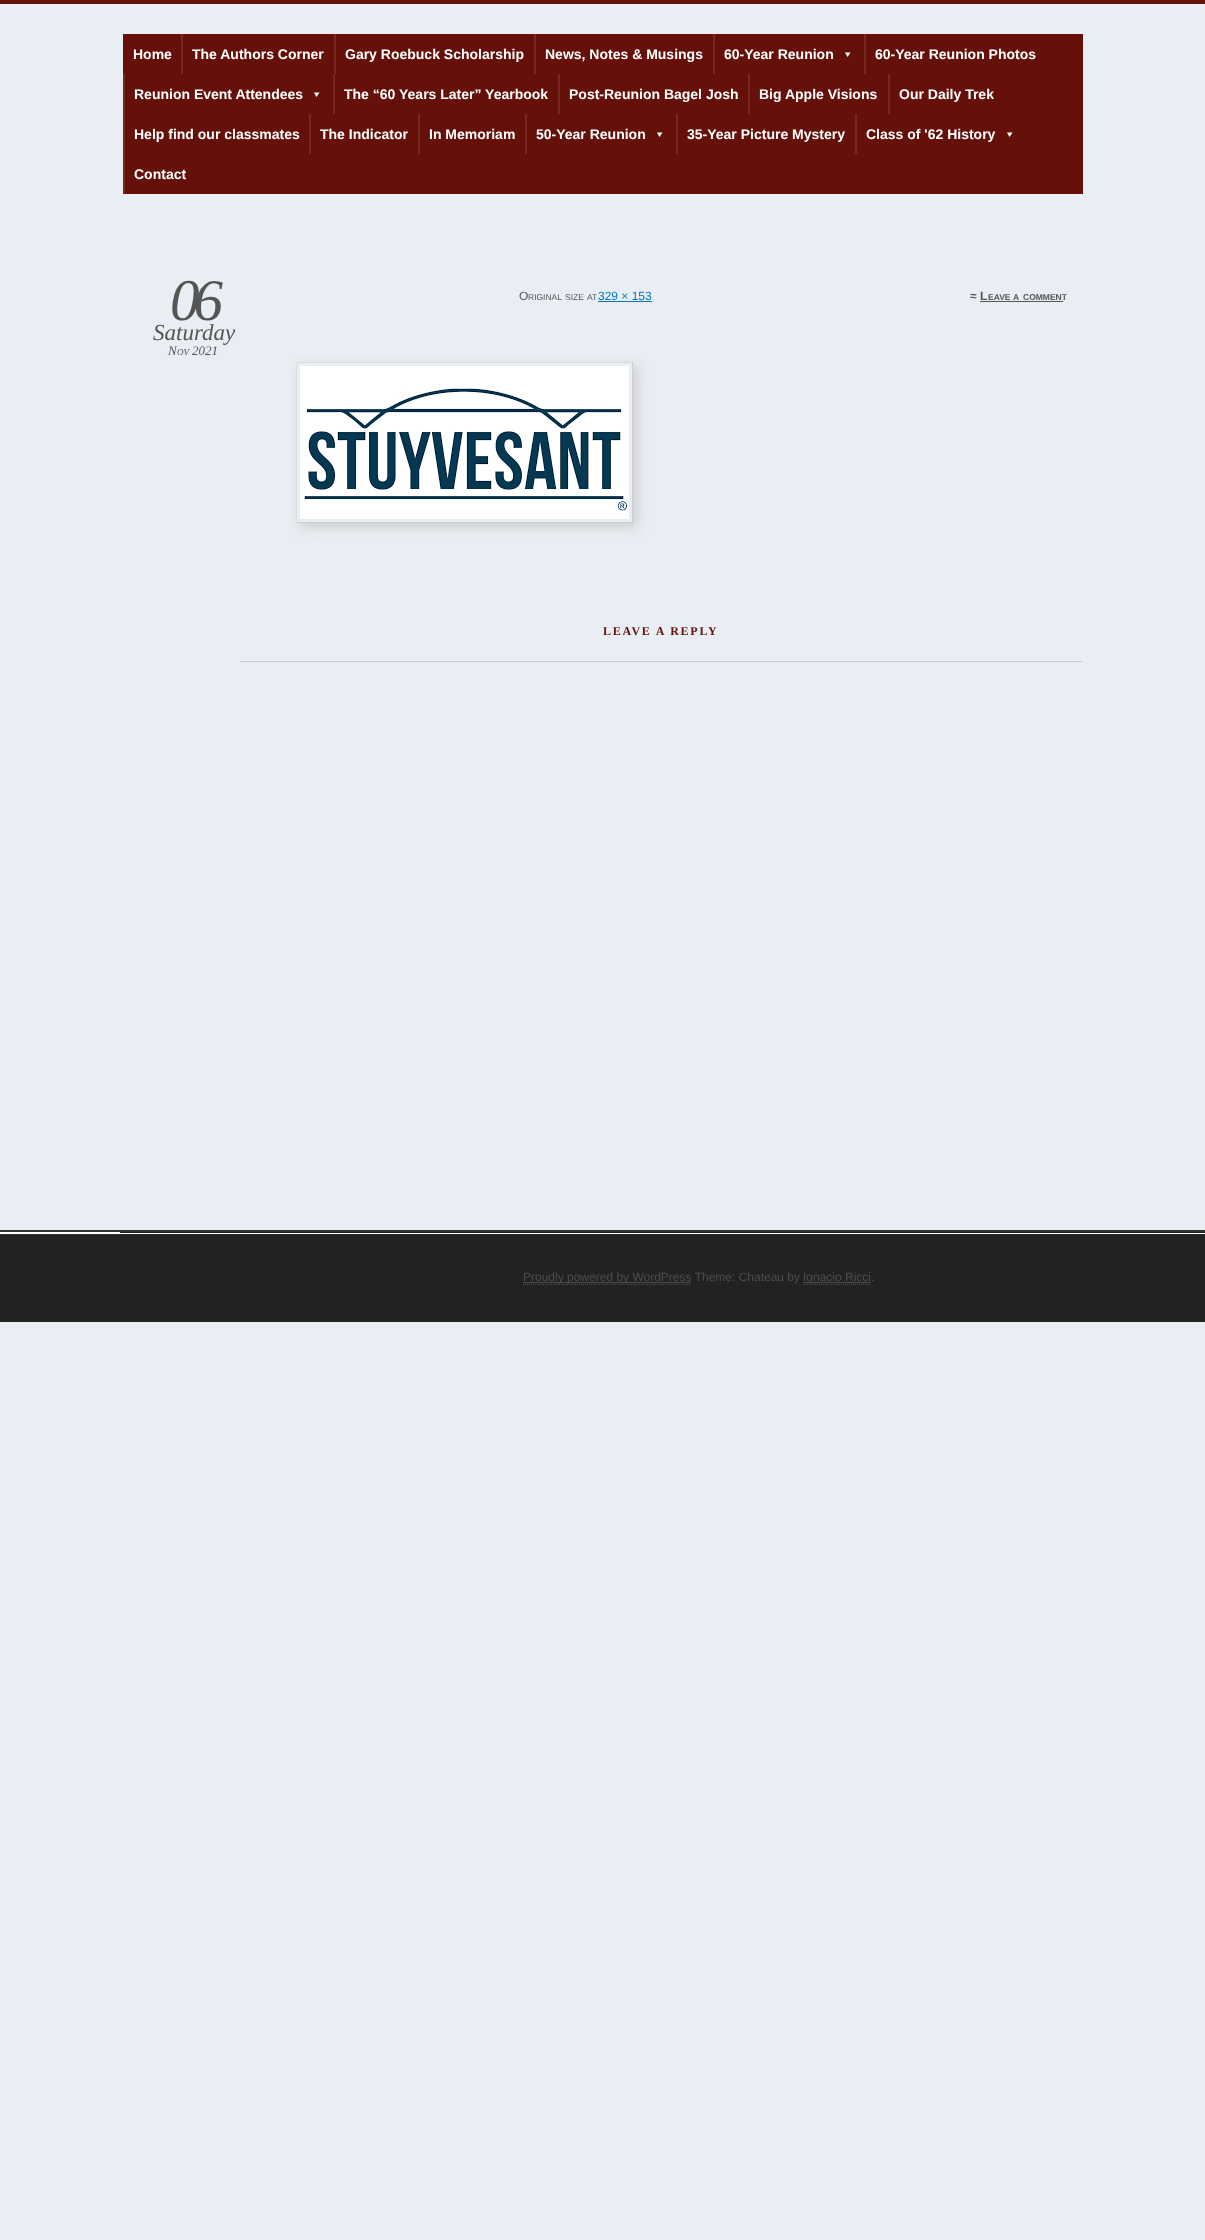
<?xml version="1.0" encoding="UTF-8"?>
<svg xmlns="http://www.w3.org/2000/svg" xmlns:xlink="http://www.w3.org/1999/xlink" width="1205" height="2240">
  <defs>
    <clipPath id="clip1"><path d="M 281 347 h 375 v 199 h -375 z m 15 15 h 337 v 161 h -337 z" clip-rule="evenodd" /></clipPath>
  </defs>
  <rect width="100%" height="100%" fill="#e8eef3" />
  <rect width="1205" height="4" fill="#65110b" />
  <rect x="123" y="34" width="960" height="160" fill="#65110a" />
  <rect x="181" y="34" width="2" height="40" fill="#742923" />
  <rect x="334" y="34" width="2" height="40" fill="#742923" />
  <rect x="534" y="34" width="2" height="40" fill="#742923" />
  <rect x="713" y="34" width="2" height="40" fill="#742923" />
  <path d="M 850.5 52.5 l -3 4.5 l -2.5 -4.5 z" fill="#ffffff" />
  <rect x="864" y="34" width="2" height="40" fill="#742923" />
  <rect x="123" y="74" width="2" height="40" fill="#742923" />
  <path d="M 319.5 92.5 l -3 4.5 l -2.5 -4.5 z" fill="#ffffff" />
  <rect x="333" y="74" width="2" height="40" fill="#742923" />
  <rect x="558" y="74" width="2" height="40" fill="#742923" />
  <rect x="748" y="74" width="2" height="40" fill="#742923" />
  <rect x="888" y="74" width="2" height="40" fill="#742923" />
  <rect x="123" y="114" width="2" height="40" fill="#742923" />
  <rect x="309" y="114" width="2" height="40" fill="#742923" />
  <rect x="418" y="114" width="2" height="40" fill="#742923" />
  <rect x="525" y="114" width="2" height="40" fill="#742923" />
  <path d="M 662.5 132.5 l -3 4.5 l -2.5 -4.5 z" fill="#ffffff" />
  <rect x="676" y="114" width="2" height="40" fill="#742923" />
  <rect x="855" y="114" width="2" height="40" fill="#742923" />
  <path d="M 1012.5 132.5 l -3 4.5 l -2.5 -4.5 z" fill="#ffffff" />
  <rect x="123" y="154" width="2" height="40" fill="#742923" />
  <rect x="598" y="301" width="54" height="1" fill="#0b74bd" />
  <rect x="980" y="301" width="83" height="1" fill="#555555" />
  <g clip-path="url(#clip1)">
    <rect x="300" y="366" width="337" height="161" fill="#cccccc" filter="blur(6px)" />
  </g>
  <rect x="296" y="362" width="337" height="1" fill="#dddddd" />
  <rect x="632" y="362" width="1" height="161" fill="#cccccc" />
  <rect x="296" y="522" width="337" height="1" fill="#cccccc" />
  <rect x="296" y="362" width="1" height="161" fill="#dddddd" />
  <image x="300" y="366" width="329" height="153" xlink:href="image1.png" />
  <rect x="240" y="661" width="843" height="1" fill="#cccccc" />
  <rect y="1232" width="1205" height="2" fill="#ffffff" />
  <rect y="1230" width="1205" height="2" fill="#333333" />
  <rect x="120" y="1232" width="1085" height="1" fill="#222222" />
  <rect y="1235" width="1205" height="87" fill="#222222" />
  <rect y="1234" width="1205" height="1" fill="#2c2c2c" />
  <path d="M 523 1284.5 h 168" fill="none" stroke="#4d4d4d" stroke-dasharray="1 1" />
  <rect x="523" y="1282" width="168" height="1" fill="#4d4d4d" />
  <path d="M 803 1284.5 h 68" fill="none" stroke="#4d4d4d" stroke-dasharray="1 1" />
  <rect x="803" y="1282" width="68" height="1" fill="#4d4d4d" />
  <text x="133" y="59" style="font-family: Liberation Sans; font-size: 14px; font-weight: bold; fill: #ffffff">Home</text>
  <text x="192" y="59" style="font-family: Liberation Sans; font-size: 14px; font-weight: bold; fill: #ffffff">The Authors Corner</text>
  <text x="345" y="59" style="font-family: Liberation Sans; font-size: 14px; font-weight: bold; fill: #ffffff">Gary Roebuck Scholarship</text>
  <text x="545" y="59" style="font-family: Liberation Sans; font-size: 14px; font-weight: bold; fill: #ffffff">News, Notes &amp; Musings</text>
  <text x="724" y="59" style="font-family: Liberation Sans; font-size: 14px; font-weight: bold; fill: #ffffff">60-Year Reunion</text>
  <text x="875" y="59" style="font-family: Liberation Sans; font-size: 14px; font-weight: bold; fill: #ffffff">60-Year Reunion Photos</text>
  <text x="134" y="99" style="font-family: Liberation Sans; font-size: 14px; font-weight: bold; fill: #ffffff">Reunion Event Attendees</text>
  <text x="344" y="99" style="font-family: Liberation Sans; font-size: 14px; font-weight: bold; fill: #ffffff">The “60 Years Later” Yearbook</text>
  <text x="569" y="99" style="font-family: Liberation Sans; font-size: 14px; font-weight: bold; fill: #ffffff">Post-Reunion Bagel Josh</text>
  <text x="759" y="99" style="font-family: Liberation Sans; font-size: 14px; font-weight: bold; fill: #ffffff">Big Apple Visions</text>
  <text x="899" y="99" style="font-family: Liberation Sans; font-size: 14px; font-weight: bold; fill: #ffffff">Our Daily Trek</text>
  <text x="134" y="139" style="font-family: Liberation Sans; font-size: 14px; font-weight: bold; fill: #ffffff">Help find our classmates</text>
  <text x="320" y="139" style="font-family: Liberation Sans; font-size: 14px; font-weight: bold; fill: #ffffff">The Indicator</text>
  <text x="429" y="139" style="font-family: Liberation Sans; font-size: 14px; font-weight: bold; fill: #ffffff">In Memoriam</text>
  <text x="536" y="139" style="font-family: Liberation Sans; font-size: 14px; font-weight: bold; fill: #ffffff">50-Year Reunion</text>
  <text x="687" y="139" style="font-family: Liberation Sans; font-size: 14px; font-weight: bold; fill: #ffffff">35-Year Picture Mystery</text>
  <text x="866" y="139" style="font-family: Liberation Sans; font-size: 14px; font-weight: bold; fill: #ffffff">Class of '62 History</text>
  <text x="134" y="179" style="font-family: Liberation Sans; font-size: 14px; font-weight: bold; fill: #ffffff">Contact</text>
  <text x="170" y="320" style="font-family: Liberation Serif; font-size: 59px; font-style: italic; letter-spacing: -6px; fill: #555555">06</text>
  <text x="153" y="340" style="font-family: Liberation Serif; font-size: 23px; font-style: italic; fill: #555555">Saturday</text>
  <text x="168" y="355" style="font-family: Liberation Serif; font-size: 13px; font-style: italic; fill: #555555">N</text>
  <text x="177" y="355" style="font-family: Liberation Serif; font-size: 9px; font-style: italic; fill: #555555">OV</text>
  <text x="192" y="355" style="font-family: Liberation Serif; font-size: 13px; font-style: italic; fill: #555555">2021</text>
  <text x="519" y="300" style="font-family: Liberation Sans; font-size: 12px; fill: #555555">O</text>
  <text x="528" y="300" style="font-family: Liberation Sans; font-size: 8.5px; fill: #555555">RIGINAL</text>
  <text x="565" y="300" style="font-family: Liberation Sans; font-size: 8.5px; fill: #555555">SIZE</text>
  <text x="587" y="300" style="font-family: Liberation Sans; font-size: 8.5px; fill: #555555">AT</text>
  <text x="598" y="300" style="font-family: Liberation Sans; font-size: 12px; fill: #0b74bd">329 × 153</text>
  <text x="970" y="300" style="font-family: Liberation Sans; font-size: 12px; font-weight: bold; fill: #555555">≈ L</text>
  <text x="988" y="300" style="font-family: Liberation Sans; font-size: 8.5px; font-weight: bold; fill: #555555">EAVE</text>
  <text x="1013" y="300" style="font-family: Liberation Sans; font-size: 8.5px; font-weight: bold; fill: #555555">A</text>
  <text x="1023" y="300" style="font-family: Liberation Sans; font-size: 8.5px; font-weight: bold; fill: #555555">COMMENT</text>
  <text x="603" y="635" style="font-family: Liberation Serif; font-size: 12px; font-weight: bold; letter-spacing: 1.75px; fill: #65110b">LEAVE A REPLY</text>
  <text x="523" y="1281" style="font-family: Liberation Sans; font-size: 12px; fill: #4d4d4d">Proudly powered by WordPress Theme: Chateau by</text>
  <text x="803" y="1281" style="font-family: Liberation Sans; font-size: 12px; fill: #4d4d4d">Ignacio Ricci.</text>
</svg>
